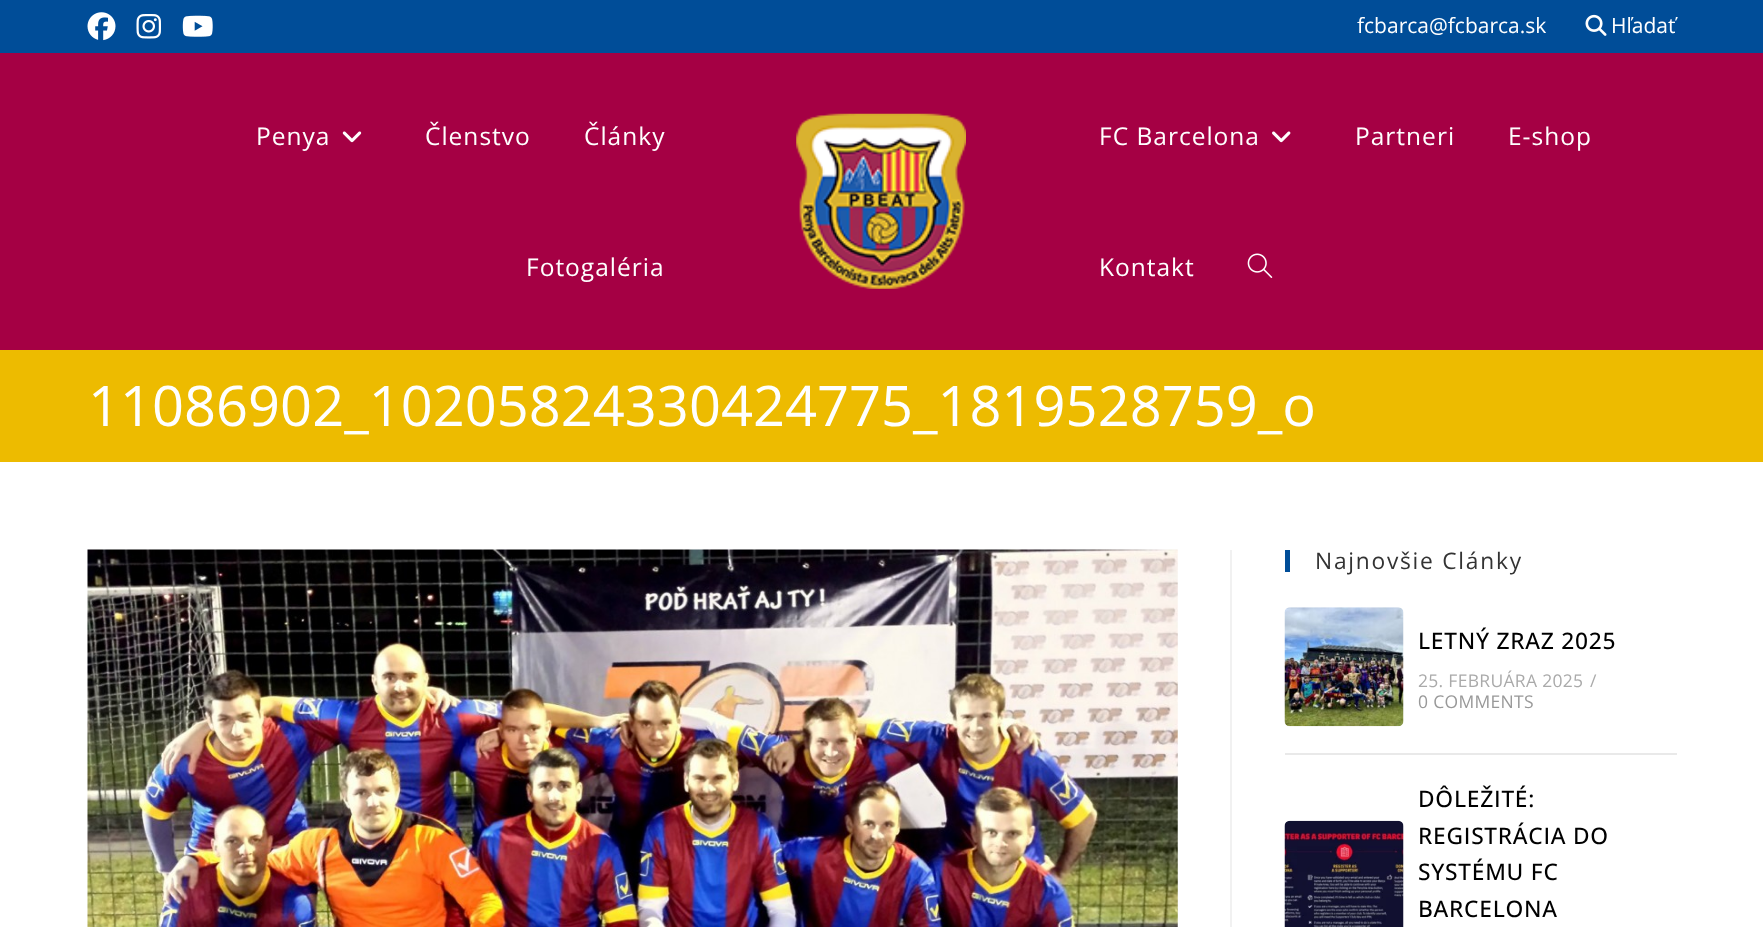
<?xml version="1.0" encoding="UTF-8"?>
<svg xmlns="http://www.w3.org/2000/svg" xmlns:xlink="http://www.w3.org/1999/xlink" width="1763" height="927">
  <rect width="100%" height="100%" fill="#ffffff" />
  <rect width="1763" height="53" fill="#004d98" />
  <image x="87" y="12" width="29" height="29" xlink:href="image1.png" />
  <image x="136" y="14" width="25" height="25" xlink:href="image2.png" />
  <image x="182" y="15" width="31" height="22" xlink:href="image3.png" />
  <image x="1585" y="14" width="22" height="22" xlink:href="image4.png" />
  <rect y="53" width="1763" height="297" fill="#a50044" />
  <image x="342" y="131" width="20" height="12" xlink:href="image5.png" />
  <image x="796" y="113" width="170" height="176" xlink:href="image6.png" />
  <image x="1272" y="131" width="19" height="12" xlink:href="image7.png" />
  <image x="1247" y="253" width="26" height="25" xlink:href="image8.png" />
  <rect y="350" width="1763" height="112" fill="#edbb00" />
  <rect x="1230" y="550" width="2" height="377" fill="#f1f1f1" />
  <image x="87" y="549" width="1091" height="378" xlink:href="image9.png" />
  <rect x="1285" y="550" width="5" height="22" fill="#004d98" />
  <image x="1284" y="607" width="120" height="120" xlink:href="image10.png" />
  <rect x="1285" y="753" width="392" height="2" fill="#e9e9e9" />
  <image x="1284" y="820" width="120" height="107" xlink:href="image11.png" />
  <text x="1357" y="33" style="font-family: Open Sans; font-size: 21px; fill: #ffffff">fcbarca@fcbarca.sk</text>
  <text x="1611" y="33" style="font-family: Open Sans; font-size: 21px; fill: #ffffff">Hľadať</text>
  <text x="256" y="145" style="font-family: Open Sans; font-size: 24.5px; letter-spacing: 1px; fill: #ffffff">Penya</text>
  <text x="425" y="145" style="font-family: Open Sans; font-size: 24.5px; letter-spacing: 1px; fill: #ffffff">Členstvo</text>
  <text x="584" y="145" style="font-family: Open Sans; font-size: 24.5px; letter-spacing: 1px; fill: #ffffff">Články</text>
  <text x="526" y="276" style="font-family: Open Sans; font-size: 24.5px; letter-spacing: 1px; fill: #ffffff">Fotogaléria</text>
  <text x="1099" y="145" style="font-family: Open Sans; font-size: 24.5px; letter-spacing: 1px; fill: #ffffff">FC Barcelona</text>
  <text x="1355" y="145" style="font-family: Open Sans; font-size: 24.5px; letter-spacing: 1px; fill: #ffffff">Partneri</text>
  <text x="1508" y="145" style="font-family: Open Sans; font-size: 24.5px; letter-spacing: 1px; fill: #ffffff">E-shop</text>
  <text x="1099" y="276" style="font-family: Open Sans; font-size: 24.5px; letter-spacing: 1px; fill: #ffffff">Kontakt</text>
  <text x="88" y="426" style="font-family: Open Sans; font-size: 56px; fill: #ffffff">11086902_10205824330424775_1819528759_o</text>
  <text x="1315" y="569" style="font-family: Open Sans; font-size: 22.75px; letter-spacing: 1.75px; fill: #333333">Najnovšie Clánky</text>
  <text x="1418" y="649" style="font-family: Open Sans; font-size: 22.75px; font-weight: 500; letter-spacing: 0.75px; fill: #000000">LETNÝ ZRAZ 2025</text>
  <text x="1418" y="687" style="font-family: Open Sans; font-size: 17.5px; letter-spacing: 0.3px; fill: #aaaaaa">25. FEBRUÁRA 2025</text>
  <text x="1590" y="687" style="font-family: Open Sans; font-size: 17.5px; letter-spacing: 0.3px; fill: #aaaaaa">/</text>
  <text x="1418" y="708" style="font-family: Open Sans; font-size: 17.5px; letter-spacing: 0.3px; fill: #999999">0 COMMENTS</text>
  <text x="1418" y="807" style="font-family: Open Sans; font-size: 22.75px; font-weight: 500; letter-spacing: 0.75px; fill: #000000">DÔLEŽITÉ:</text>
  <text x="1418" y="844" style="font-family: Open Sans; font-size: 22.75px; font-weight: 500; letter-spacing: 0.75px; fill: #000000">REGISTRÁCIA DO</text>
  <text x="1418" y="880" style="font-family: Open Sans; font-size: 22.75px; font-weight: 500; letter-spacing: 0.75px; fill: #000000">SYSTÉMU FC</text>
  <text x="1418" y="917" style="font-family: Open Sans; font-size: 22.75px; font-weight: 500; letter-spacing: 0.75px; fill: #000000">BARCELONA</text>
</svg>
